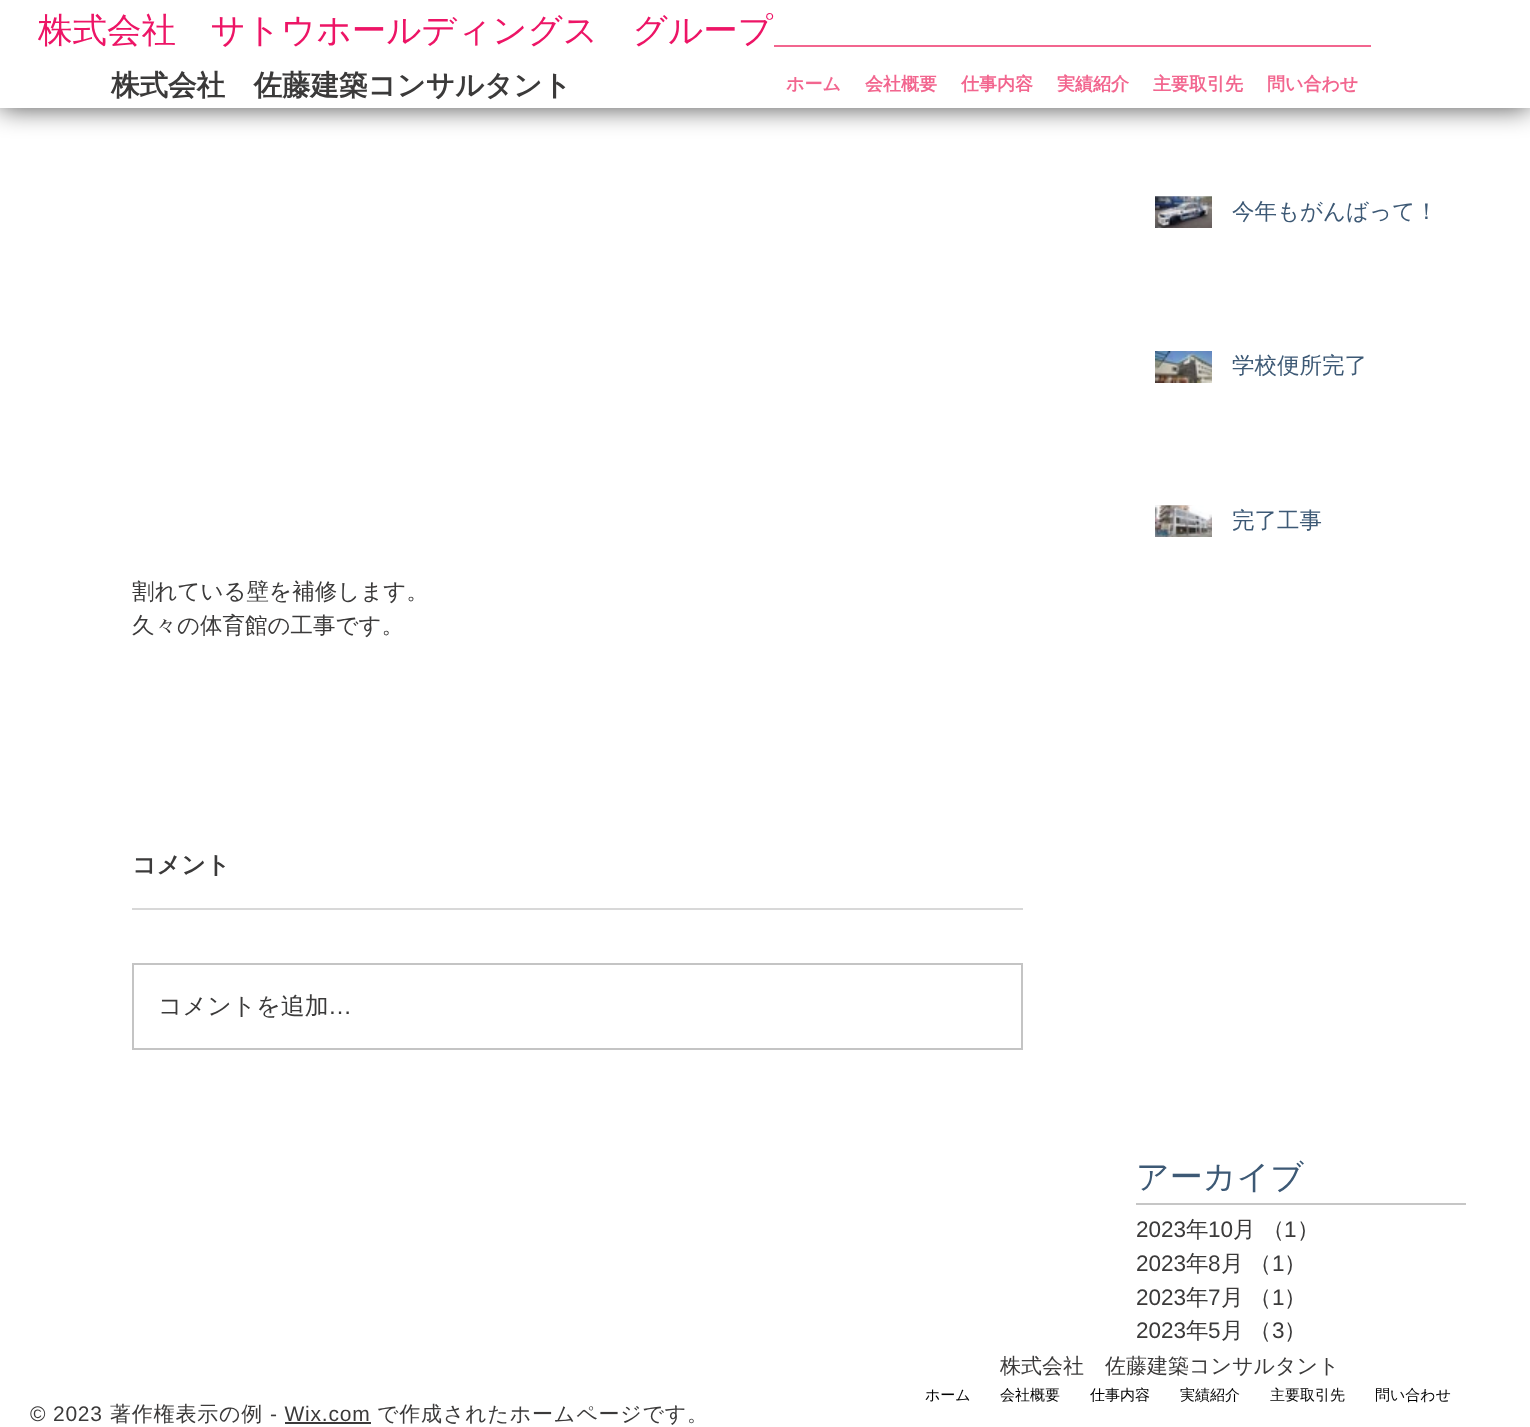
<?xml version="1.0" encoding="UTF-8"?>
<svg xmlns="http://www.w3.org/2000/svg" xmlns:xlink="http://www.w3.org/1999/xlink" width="1530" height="1427">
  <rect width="100%" height="100%" fill="#ffffff" />
  <rect width="1530" height="108" fill="#000000" fill-opacity="0.7" filter="blur(13.5px)" />
  <rect width="1530" height="108" fill="#ffffff" />
  <rect x="774" y="45" width="597" height="2" fill="#f2668f" />
  <image x="1155" y="196" width="57" height="1" xlink:href="image1.png" />
  <image x="1155" y="196" width="57" height="32" xlink:href="image2.png" />
  <image x="1155" y="351" width="57" height="32" xlink:href="image3.png" />
  <image x="1155" y="505" width="57" height="1" xlink:href="image4.png" />
  <image x="1155" y="505" width="57" height="32" xlink:href="image5.png" />
  <rect x="132" y="908" width="891" height="2" fill="#d8d8d8" />
  <rect x="133" y="964" width="889" height="85" fill="none" stroke="#c4c4c4" stroke-width="2" />
  <rect x="1136" y="1203" width="330" height="2" fill="#c6c6c6" />
  <rect x="285" y="1422" width="86" height="2" fill="#3b3a3a" />
  <text x="38" y="42" style="font-family: WenQuanYi Zen Hei; font-size: 34.5px; font-weight: 500; fill: #ed1566">株式会社　サトウホールディングス　グループ</text>
  <text x="111" y="95" style="font-family: WenQuanYi Zen Hei; font-size: 28.5px; font-weight: bold; fill: #3b3a3a">株式会社　佐藤建築コンサルタント</text>
  <text x="786" y="90" style="font-family: WenQuanYi Zen Hei; font-size: 18px; font-weight: bold; fill: #f2668f">ホーム</text>
  <text x="865" y="90" style="font-family: WenQuanYi Zen Hei; font-size: 18px; font-weight: bold; fill: #f2668f">会社概要</text>
  <text x="961" y="90" style="font-family: WenQuanYi Zen Hei; font-size: 18px; font-weight: bold; fill: #f2668f">仕事内容</text>
  <text x="1057" y="90" style="font-family: WenQuanYi Zen Hei; font-size: 18px; font-weight: bold; fill: #f2668f">実績紹介</text>
  <text x="1153" y="90" style="font-family: WenQuanYi Zen Hei; font-size: 18px; font-weight: bold; fill: #f2668f">主要取引先</text>
  <text x="1267" y="90" style="font-family: WenQuanYi Zen Hei; font-size: 18px; font-weight: bold; fill: #f2668f">問い合わせ</text>
  <text x="1232" y="219" style="font-family: WenQuanYi Zen Hei; font-size: 22.5px; font-weight: 500; fill: #3d5975">今年もがんばって！</text>
  <text x="1232" y="373" style="font-family: WenQuanYi Zen Hei; font-size: 22.5px; font-weight: 500; fill: #3d5975">学校便所完了</text>
  <text x="1232" y="528" style="font-family: WenQuanYi Zen Hei; font-size: 22.5px; font-weight: 500; fill: #3d5975">完了工事</text>
  <text x="132" y="599" style="font-family: WenQuanYi Zen Hei; font-size: 22.5px; font-weight: 500; fill: #3b3a3a">割れている壁を補修します。</text>
  <text x="132" y="633" style="font-family: WenQuanYi Zen Hei; font-size: 22.5px; font-weight: 500; fill: #3b3a3a">久々の体育館の工事です。</text>
  <text x="132" y="873" style="font-family: WenQuanYi Zen Hei; font-size: 24px; font-weight: bold; fill: #3b3a3a">コメント</text>
  <text x="158" y="1014" style="font-family: WenQuanYi Zen Hei; font-size: 24px; font-weight: 500; fill: #3b3a3a">コメントを追加</text>
  <text x="328" y="1014" style="font-family: Liberation Sans; font-size: 24px; fill: #3b3a3a">…</text>
  <text x="1136" y="1188" style="font-family: WenQuanYi Zen Hei; font-size: 33px; font-weight: 500; fill: #3d5975">アーカイブ</text>
  <text x="1136" y="1237" style="font-family: Liberation Sans; font-size: 22.5px; fill: #3b3a3a">2023</text>
  <text x="1186" y="1237" style="font-family: WenQuanYi Zen Hei; font-size: 22.5px; font-weight: 500; fill: #3b3a3a">年</text>
  <text x="1208" y="1237" style="font-family: Liberation Sans; font-size: 22.5px; fill: #3b3a3a">10</text>
  <text x="1233" y="1237" style="font-family: WenQuanYi Zen Hei; font-size: 22.5px; font-weight: 500; fill: #3b3a3a">月</text>
  <text x="1262" y="1237" style="font-family: WenQuanYi Zen Hei; font-size: 22.5px; font-weight: 500; fill: #3b3a3a">（</text>
  <text x="1284" y="1237" style="font-family: Liberation Sans; font-size: 22.5px; fill: #3b3a3a">1</text>
  <text x="1297" y="1237" style="font-family: WenQuanYi Zen Hei; font-size: 22.5px; font-weight: 500; fill: #3b3a3a">）</text>
  <text x="1136" y="1271" style="font-family: Liberation Sans; font-size: 22.5px; fill: #3b3a3a">2023</text>
  <text x="1186" y="1271" style="font-family: WenQuanYi Zen Hei; font-size: 22.5px; font-weight: 500; fill: #3b3a3a">年</text>
  <text x="1208" y="1271" style="font-family: Liberation Sans; font-size: 22.5px; fill: #3b3a3a">8</text>
  <text x="1221" y="1271" style="font-family: WenQuanYi Zen Hei; font-size: 22.5px; font-weight: 500; fill: #3b3a3a">月</text>
  <text x="1249" y="1271" style="font-family: WenQuanYi Zen Hei; font-size: 22.5px; font-weight: 500; fill: #3b3a3a">（</text>
  <text x="1272" y="1271" style="font-family: Liberation Sans; font-size: 22.5px; fill: #3b3a3a">1</text>
  <text x="1284" y="1271" style="font-family: WenQuanYi Zen Hei; font-size: 22.5px; font-weight: 500; fill: #3b3a3a">）</text>
  <text x="1136" y="1305" style="font-family: Liberation Sans; font-size: 22.5px; fill: #3b3a3a">2023</text>
  <text x="1186" y="1305" style="font-family: WenQuanYi Zen Hei; font-size: 22.5px; font-weight: 500; fill: #3b3a3a">年</text>
  <text x="1208" y="1305" style="font-family: Liberation Sans; font-size: 22.5px; fill: #3b3a3a">7</text>
  <text x="1221" y="1305" style="font-family: WenQuanYi Zen Hei; font-size: 22.5px; font-weight: 500; fill: #3b3a3a">月</text>
  <text x="1249" y="1305" style="font-family: WenQuanYi Zen Hei; font-size: 22.5px; font-weight: 500; fill: #3b3a3a">（</text>
  <text x="1272" y="1305" style="font-family: Liberation Sans; font-size: 22.5px; fill: #3b3a3a">1</text>
  <text x="1284" y="1305" style="font-family: WenQuanYi Zen Hei; font-size: 22.5px; font-weight: 500; fill: #3b3a3a">）</text>
  <text x="1136" y="1338" style="font-family: Liberation Sans; font-size: 22.5px; fill: #3b3a3a">2023</text>
  <text x="1186" y="1338" style="font-family: WenQuanYi Zen Hei; font-size: 22.5px; font-weight: 500; fill: #3b3a3a">年</text>
  <text x="1208" y="1338" style="font-family: Liberation Sans; font-size: 22.5px; fill: #3b3a3a">5</text>
  <text x="1221" y="1338" style="font-family: WenQuanYi Zen Hei; font-size: 22.5px; font-weight: 500; fill: #3b3a3a">月</text>
  <text x="1249" y="1338" style="font-family: WenQuanYi Zen Hei; font-size: 22.5px; font-weight: 500; fill: #3b3a3a">（</text>
  <text x="1272" y="1338" style="font-family: Liberation Sans; font-size: 22.5px; fill: #3b3a3a">3</text>
  <text x="1284" y="1338" style="font-family: WenQuanYi Zen Hei; font-size: 22.5px; font-weight: 500; fill: #3b3a3a">）</text>
  <text x="1000" y="1373" style="font-family: WenQuanYi Zen Hei; font-size: 21px; font-weight: 500; fill: #3b3a3a">株式会社　佐藤建築コンサルタント</text>
  <text x="925" y="1400" style="font-family: WenQuanYi Zen Hei; font-size: 15px; font-weight: 500; fill: #000000">ホーム</text>
  <text x="1000" y="1400" style="font-family: WenQuanYi Zen Hei; font-size: 15px; font-weight: 500; fill: #000000">会社概要</text>
  <text x="1090" y="1400" style="font-family: WenQuanYi Zen Hei; font-size: 15px; font-weight: 500; fill: #000000">仕事内容</text>
  <text x="1180" y="1400" style="font-family: WenQuanYi Zen Hei; font-size: 15px; font-weight: 500; fill: #000000">実績紹介</text>
  <text x="1270" y="1400" style="font-family: WenQuanYi Zen Hei; font-size: 15px; font-weight: 500; fill: #000000">主要取引先</text>
  <text x="1375" y="1400" style="font-family: WenQuanYi Zen Hei; font-size: 15px; font-weight: 500; fill: #000000">問い合わせ</text>
  <text x="30" y="1421" style="font-family: Liberation Sans; font-size: 21px; letter-spacing: 0.8px; fill: #3b3a3a">© 2023</text>
  <text x="110" y="1421" style="font-family: WenQuanYi Zen Hei; font-size: 21px; font-weight: 500; letter-spacing: 0.8px; fill: #3b3a3a">著作権表示の例</text>
  <text x="270" y="1421" style="font-family: Liberation Sans; font-size: 21px; letter-spacing: 0.8px; fill: #3b3a3a">- Wix.com</text>
  <text x="377" y="1421" style="font-family: WenQuanYi Zen Hei; font-size: 21px; font-weight: 500; letter-spacing: 0.8px; fill: #3b3a3a">で作成されたホームページです。</text>
</svg>
